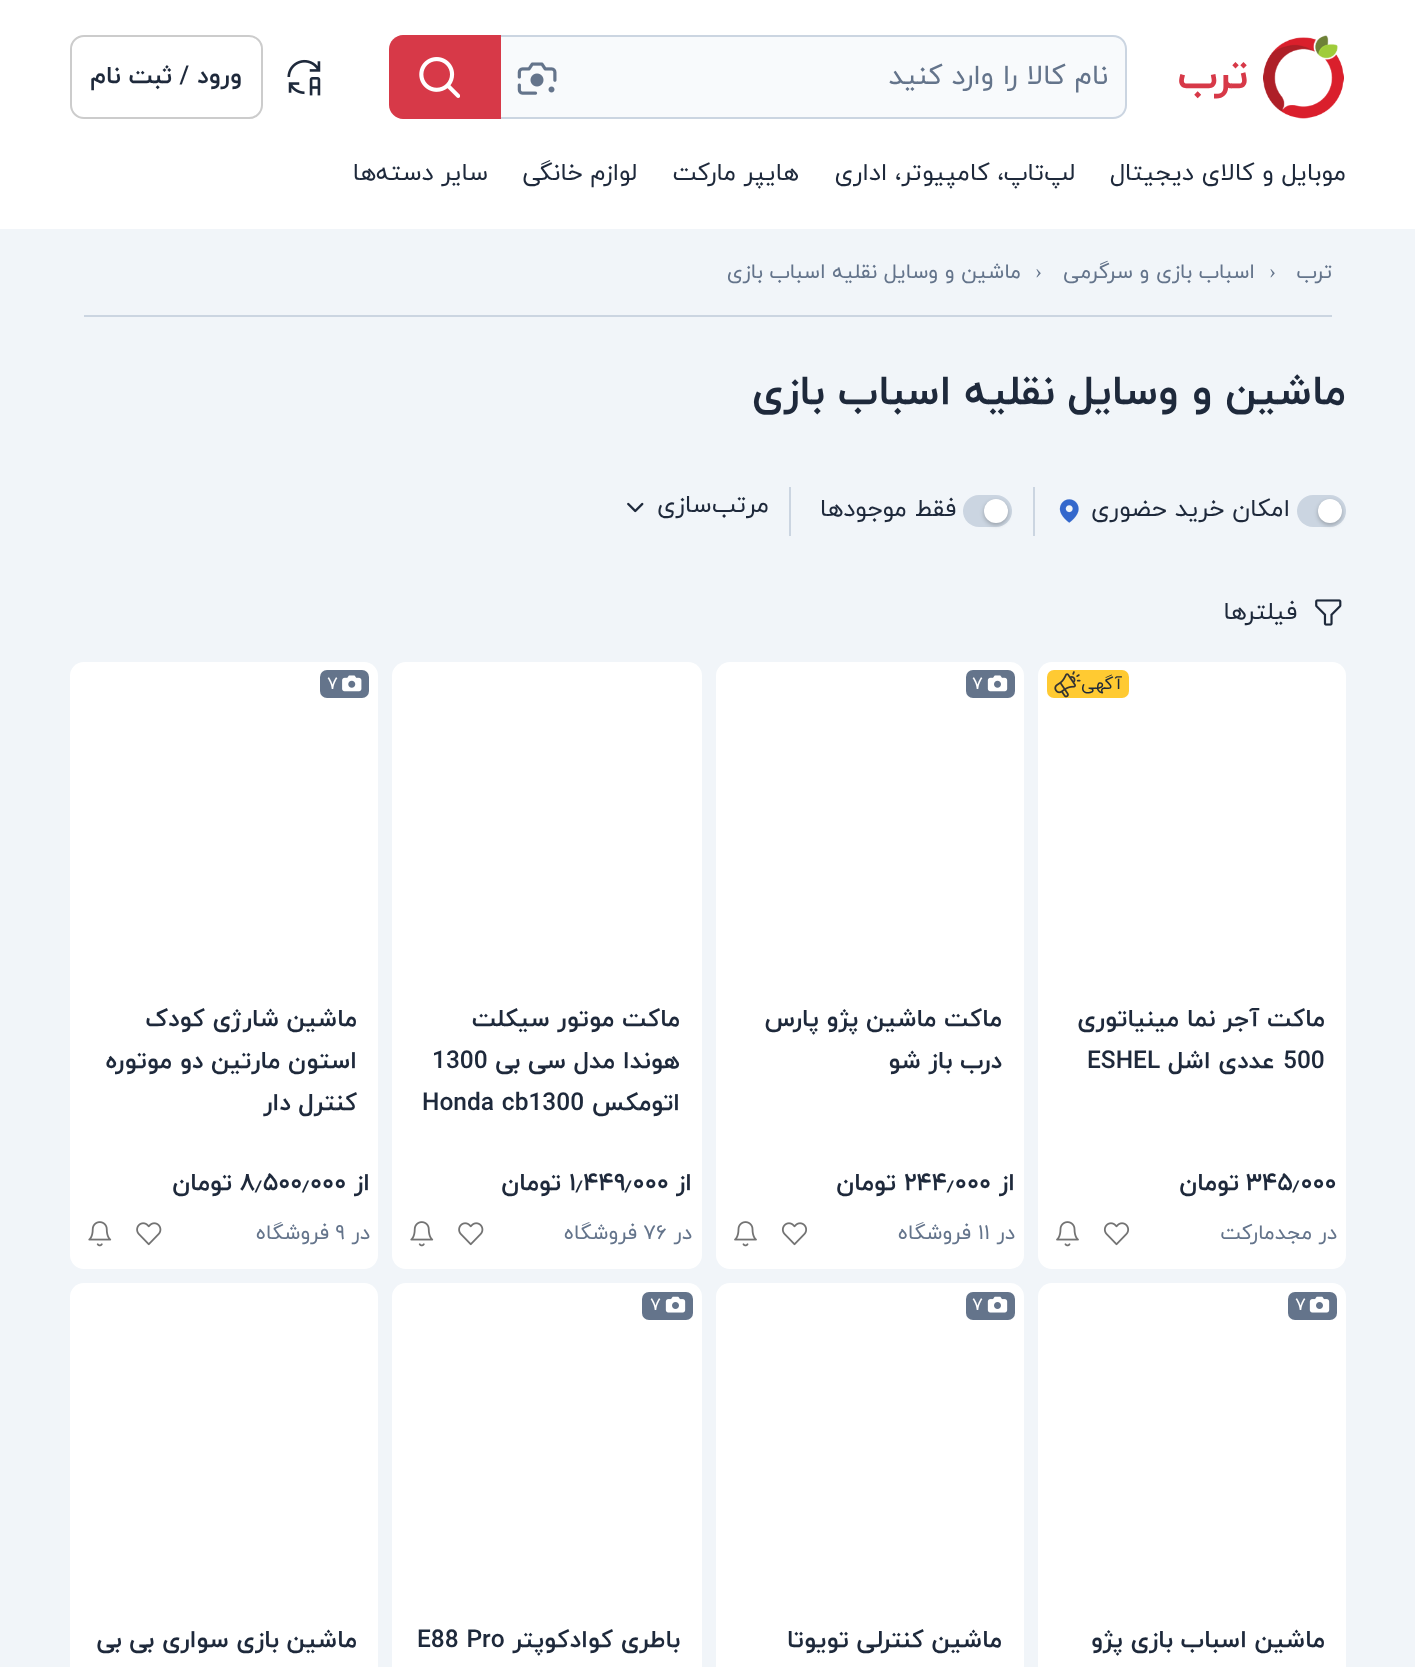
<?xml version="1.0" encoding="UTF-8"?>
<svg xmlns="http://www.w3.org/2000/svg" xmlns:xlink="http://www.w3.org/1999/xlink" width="1415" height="1667">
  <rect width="100%" height="100%" fill="#f1f5f9" />
  <rect width="1415" height="229" fill="#ffffff" />
  <image x="1263" y="35" width="81" height="84" xlink:href="image1.png" />
  <path d="M 501 35 h 612 c 7.5 0 14 6.5 14 14 v 56 c 0 7.5 -6.5 14 -14 14 h -612 z" fill="#f8fafc" />
  <path d="M 500 35 h 613 c 8 0 14 6 14 14 v 56 c 0 8 -6 14 -14 14 h -613 z m 0 2 h 613 c 7 0 12 5 12 12 v 56 c 0 7 -5 12 -12 12 h -613 z" fill="#cbd5e1" fill-rule="evenodd" />
  <image x="517" y="62" width="40" height="33" xlink:href="image2.png" />
  <path d="M 403 35 h 98 v 84 h -98 c -7.5 0 -14 -6.5 -14 -14 v -56 c 0 -7.5 6.5 -14 14 -14 z" fill="#d73948" />
  <image x="419" y="57" width="41" height="41" xlink:href="image3.png" />
  <image x="287" y="59" width="34" height="37" xlink:href="image4.png" />
  <rect x="71" y="36" width="191" height="82" rx="13" fill="none" stroke="#cccccc" stroke-width="2" />
  <rect x="84" y="315" width="1248" height="2" fill="#cbd5e1" />
  <rect x="1297" y="495" width="49" height="32" rx="16" fill="#cbd5e1" />
  <rect x="1318" y="501" width="24" height="24" rx="12" fill="#000000" fill-opacity="0.24" filter="blur(2px)" />
  <circle cx="1330" cy="511" r="12" fill="#ffffff" />
  <image x="1059" y="499" width="20" height="24" xlink:href="image5.png" />
  <rect x="1033" y="487" width="2" height="49" fill="#cbd5e1" />
  <rect x="963" y="495" width="49" height="32" rx="16" fill="#cbd5e1" />
  <rect x="984" y="501" width="24" height="24" rx="12" fill="#000000" fill-opacity="0.24" filter="blur(2px)" />
  <circle cx="996" cy="511" r="12" fill="#ffffff" />
  <rect x="789" y="487" width="2" height="49" fill="#cbd5e1" />
  <image x="627" y="502" width="17" height="11" xlink:href="image6.png" />
  <image x="1315" y="599" width="27" height="27" xlink:href="image7.png" />
  <rect x="1038" y="662" width="308" height="607" rx="14" fill="#ffffff" />
  <rect x="1047" y="670" width="82" height="28" rx="7" fill="#ffca32" />
  <image x="1054" y="671" width="27" height="27" xlink:href="image8.png" />
  <image x="1103" y="1222" width="27" height="24" xlink:href="image9.png" />
  <image x="1056" y="1221" width="23" height="26" xlink:href="image10.png" />
  <rect x="716" y="662" width="308" height="607" rx="14" fill="#ffffff" />
  <rect x="966" y="670" width="49" height="28" rx="7" fill="#64748b" />
  <image x="987" y="675" width="21" height="17" xlink:href="image11.png" />
  <image x="781" y="1222" width="26" height="24" xlink:href="image12.png" />
  <image x="734" y="1221" width="23" height="26" xlink:href="image10.png" />
  <rect x="392" y="662" width="310" height="607" rx="14" fill="#ffffff" />
  <image x="458" y="1222" width="26" height="24" xlink:href="image13.png" />
  <image x="410" y="1221" width="24" height="26" xlink:href="image14.png" />
  <rect x="70" y="662" width="308" height="607" rx="14" fill="#ffffff" />
  <rect x="320" y="670" width="49" height="28" rx="7" fill="#64748b" />
  <image x="342" y="675" width="20" height="17" xlink:href="image15.png" />
  <image x="136" y="1222" width="26" height="24" xlink:href="image13.png" />
  <image x="88" y="1221" width="24" height="26" xlink:href="image14.png" />
  <rect x="1038" y="1283" width="308" height="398" rx="14" fill="#ffffff" />
  <rect x="1288" y="1292" width="49" height="28" rx="7" fill="#64748b" />
  <image x="1309" y="1296" width="21" height="17" xlink:href="image16.png" />
  <rect x="716" y="1283" width="308" height="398" rx="14" fill="#ffffff" />
  <rect x="966" y="1292" width="49" height="28" rx="7" fill="#64748b" />
  <image x="987" y="1296" width="21" height="17" xlink:href="image16.png" />
  <rect x="392" y="1283" width="310" height="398" rx="14" fill="#ffffff" />
  <rect x="642" y="1292" width="51" height="28" rx="7" fill="#64748b" />
  <image x="665" y="1296" width="21" height="17" xlink:href="image16.png" />
  <rect x="70" y="1283" width="308" height="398" rx="14" fill="#ffffff" />
  <text x="1248" y="88" style="font-family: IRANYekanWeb; font-size: 42px; font-weight: bold; direction: rtl; fill: #d73948">ترب</text>
  <text x="1108" y="84" style="font-family: IRANYekanWeb; font-size: 28px; direction: rtl; fill: #64748b">نام کالا را وارد کنید</text>
  <text x="242" y="83" style="font-family: IRANYekanWeb; font-size: 24.5px; font-weight: bold; direction: rtl; fill: #1e293b">ورود / ثبت نام</text>
  <text x="1346" y="180" style="font-family: IRANYekanWeb; font-size: 24.5px; direction: rtl; fill: #1e293b">موبایل و کالای دیجیتال</text>
  <text x="1075" y="180" style="font-family: IRANYekanWeb; font-size: 24.5px; direction: rtl; fill: #1e293b">لپ‌تاپ، کامپیوتر، اداری</text>
  <text x="799" y="180" style="font-family: IRANYekanWeb; font-size: 24.5px; direction: rtl; fill: #1e293b">هایپر مارکت</text>
  <text x="637" y="180" style="font-family: IRANYekanWeb; font-size: 24.5px; direction: rtl; fill: #1e293b">لوازم خانگی</text>
  <text x="488" y="180" style="font-family: IRANYekanWeb; font-size: 24.5px; direction: rtl; fill: #1e293b">سایر دسته‌ها</text>
  <text x="1332" y="278" style="font-family: IRANYekanWeb; font-size: 21px; direction: rtl; fill: #64748b">ترب</text>
  <text x="1269" y="278" style="font-family: Liberation Serif; font-size: 21px; fill: #64748b">›</text>
  <text x="1255" y="278" style="font-family: IRANYekanWeb; font-size: 21px; direction: rtl; fill: #64748b">اسباب بازی و سرگرمی</text>
  <text x="1035" y="278" style="font-family: Liberation Serif; font-size: 21px; fill: #64748b">›</text>
  <text x="1021" y="278" style="font-family: IRANYekanWeb; font-size: 21px; direction: rtl; fill: #64748b">ماشین و وسایل نقلیه اسباب بازی</text>
  <text x="1346" y="404" style="font-family: IRANYekanWeb; font-size: 42px; font-weight: bold; direction: rtl; fill: #1e293b">ماشین و وسایل نقلیه اسباب بازی</text>
  <text x="1290" y="516" style="font-family: IRANYekanWeb; font-size: 24.5px; direction: rtl; fill: #1e293b">امکان خرید حضوری</text>
  <text x="956" y="516" style="font-family: IRANYekanWeb; font-size: 24.5px; direction: rtl; fill: #1e293b">فقط موجودها</text>
  <text x="769" y="512" style="font-family: IRANYekanWeb; font-size: 24.5px; direction: rtl; fill: #1e293b">مرتب‌سازی</text>
  <text x="1297" y="619" style="font-family: IRANYekanWeb; font-size: 24.5px; direction: rtl; fill: #1e293b">فیلترها</text>
  <text x="1122" y="689" style="font-family: IRANYekanWeb; font-size: 17.5px; direction: rtl; fill: #1e293b">آگهی</text>
  <text x="1325" y="1026" style="font-family: IRANYekanWeb; font-size: 24.5px; font-weight: bold; direction: rtl; fill: #1e293b">ماکت آجر نما مینیاتوری</text>
  <text x="1283" y="1068" style="font-family: IRANYekanWeb; font-size: 24.5px; font-weight: bold; fill: #1e293b">500</text>
  <text x="1275" y="1068" style="font-family: IRANYekanWeb; font-size: 24.5px; font-weight: bold; direction: rtl; fill: #1e293b">عددی اشل</text>
  <text x="1087" y="1068" style="font-family: IRANYekanWeb; font-size: 24.5px; font-weight: bold; fill: #1e293b">ESHEL</text>
  <text x="1246" y="1190" style="font-family: IRANYekanWeb; font-size: 24.5px; font-weight: bold; fill: #1e293b">۳۴۵٫۰۰۰</text>
  <text x="1239" y="1190" style="font-family: IRANYekanWeb; font-size: 24.5px; font-weight: bold; direction: rtl; fill: #1e293b">تومان</text>
  <text x="1337" y="1239" style="font-family: IRANYekanWeb; font-size: 21px; direction: rtl; fill: #64748b">در مجدمارکت</text>
  <text x="972" y="689" style="font-family: IRANYekanWeb; font-size: 17.5px; fill: #ffffff">۷</text>
  <text x="1002" y="1026" style="font-family: IRANYekanWeb; font-size: 24.5px; font-weight: bold; direction: rtl; fill: #1e293b">ماکت ماشین پژو پارس</text>
  <text x="1002" y="1068" style="font-family: IRANYekanWeb; font-size: 24.5px; font-weight: bold; direction: rtl; fill: #1e293b">درب باز شو</text>
  <text x="1015" y="1190" style="font-family: IRANYekanWeb; font-size: 24.5px; font-weight: bold; direction: rtl; fill: #1e293b">از</text>
  <text x="904" y="1190" style="font-family: IRANYekanWeb; font-size: 24.5px; font-weight: bold; fill: #1e293b">۲۴۴٫۰۰۰</text>
  <text x="896" y="1190" style="font-family: IRANYekanWeb; font-size: 24.5px; font-weight: bold; direction: rtl; fill: #1e293b">تومان</text>
  <text x="1015" y="1239" style="font-family: IRANYekanWeb; font-size: 21px; direction: rtl; fill: #64748b">در</text>
  <text x="978" y="1239" style="font-family: IRANYekanWeb; font-size: 21px; fill: #64748b">۱۱</text>
  <text x="971" y="1239" style="font-family: IRANYekanWeb; font-size: 21px; direction: rtl; fill: #64748b">فروشگاه</text>
  <text x="680" y="1026" style="font-family: IRANYekanWeb; font-size: 24.5px; font-weight: bold; direction: rtl; fill: #1e293b">ماکت موتور سیکلت</text>
  <text x="680" y="1068" style="font-family: IRANYekanWeb; font-size: 24.5px; font-weight: bold; direction: rtl; fill: #1e293b">هوندا مدل سی بی</text>
  <text x="432" y="1068" style="font-family: IRANYekanWeb; font-size: 24.5px; font-weight: bold; fill: #1e293b">1300</text>
  <text x="680" y="1110" style="font-family: IRANYekanWeb; font-size: 24.5px; font-weight: bold; direction: rtl; fill: #1e293b">اتومکس</text>
  <text x="422" y="1110" style="font-family: IRANYekanWeb; font-size: 24.5px; font-weight: bold; fill: #1e293b">Honda cb1300</text>
  <text x="692" y="1190" style="font-family: IRANYekanWeb; font-size: 24.5px; font-weight: bold; direction: rtl; fill: #1e293b">از</text>
  <text x="569" y="1190" style="font-family: IRANYekanWeb; font-size: 24.5px; font-weight: bold; fill: #1e293b">۱٫۴۴۹٫۰۰۰</text>
  <text x="561" y="1190" style="font-family: IRANYekanWeb; font-size: 24.5px; font-weight: bold; direction: rtl; fill: #1e293b">تومان</text>
  <text x="692" y="1239" style="font-family: IRANYekanWeb; font-size: 21px; direction: rtl; fill: #64748b">در</text>
  <text x="643" y="1239" style="font-family: IRANYekanWeb; font-size: 21px; fill: #64748b">۷۶</text>
  <text x="637" y="1239" style="font-family: IRANYekanWeb; font-size: 21px; direction: rtl; fill: #64748b">فروشگاه</text>
  <text x="327" y="689" style="font-family: IRANYekanWeb; font-size: 17.5px; fill: #ffffff">۷</text>
  <text x="357" y="1026" style="font-family: IRANYekanWeb; font-size: 24.5px; font-weight: bold; direction: rtl; fill: #1e293b">ماشین شارژی کودک</text>
  <text x="357" y="1068" style="font-family: IRANYekanWeb; font-size: 24.5px; font-weight: bold; direction: rtl; fill: #1e293b">استون مارتین دو موتوره</text>
  <text x="357" y="1110" style="font-family: IRANYekanWeb; font-size: 24.5px; font-weight: bold; direction: rtl; fill: #1e293b">کنترل دار</text>
  <text x="370" y="1190" style="font-family: IRANYekanWeb; font-size: 24.5px; font-weight: bold; direction: rtl; fill: #1e293b">از</text>
  <text x="240" y="1190" style="font-family: IRANYekanWeb; font-size: 24.5px; font-weight: bold; fill: #1e293b">۸٫۵۰۰٫۰۰۰</text>
  <text x="232" y="1190" style="font-family: IRANYekanWeb; font-size: 24.5px; font-weight: bold; direction: rtl; fill: #1e293b">تومان</text>
  <text x="370" y="1239" style="font-family: IRANYekanWeb; font-size: 21px; direction: rtl; fill: #64748b">در</text>
  <text x="335" y="1239" style="font-family: IRANYekanWeb; font-size: 21px; fill: #64748b">۹</text>
  <text x="329" y="1239" style="font-family: IRANYekanWeb; font-size: 21px; direction: rtl; fill: #64748b">فروشگاه</text>
  <text x="1295" y="1310" style="font-family: IRANYekanWeb; font-size: 17.5px; fill: #ffffff">۷</text>
  <text x="1325" y="1647" style="font-family: IRANYekanWeb; font-size: 24.5px; font-weight: bold; direction: rtl; fill: #1e293b">ماشین اسباب بازی پژو</text>
  <text x="972" y="1310" style="font-family: IRANYekanWeb; font-size: 17.5px; fill: #ffffff">۷</text>
  <text x="1002" y="1647" style="font-family: IRANYekanWeb; font-size: 24.5px; font-weight: bold; direction: rtl; fill: #1e293b">ماشین کنترلی تویوتا</text>
  <text x="650" y="1310" style="font-family: IRANYekanWeb; font-size: 17.5px; fill: #ffffff">۷</text>
  <text x="680" y="1647" style="font-family: IRANYekanWeb; font-size: 24.5px; font-weight: bold; direction: rtl; fill: #1e293b">باطری کوادکوپتر</text>
  <text x="417" y="1647" style="font-family: IRANYekanWeb; font-size: 24.5px; font-weight: bold; fill: #1e293b">E88 Pro</text>
  <text x="357" y="1647" style="font-family: IRANYekanWeb; font-size: 24.5px; font-weight: bold; direction: rtl; fill: #1e293b">ماشین بازی سواری بی بی</text>
</svg>
